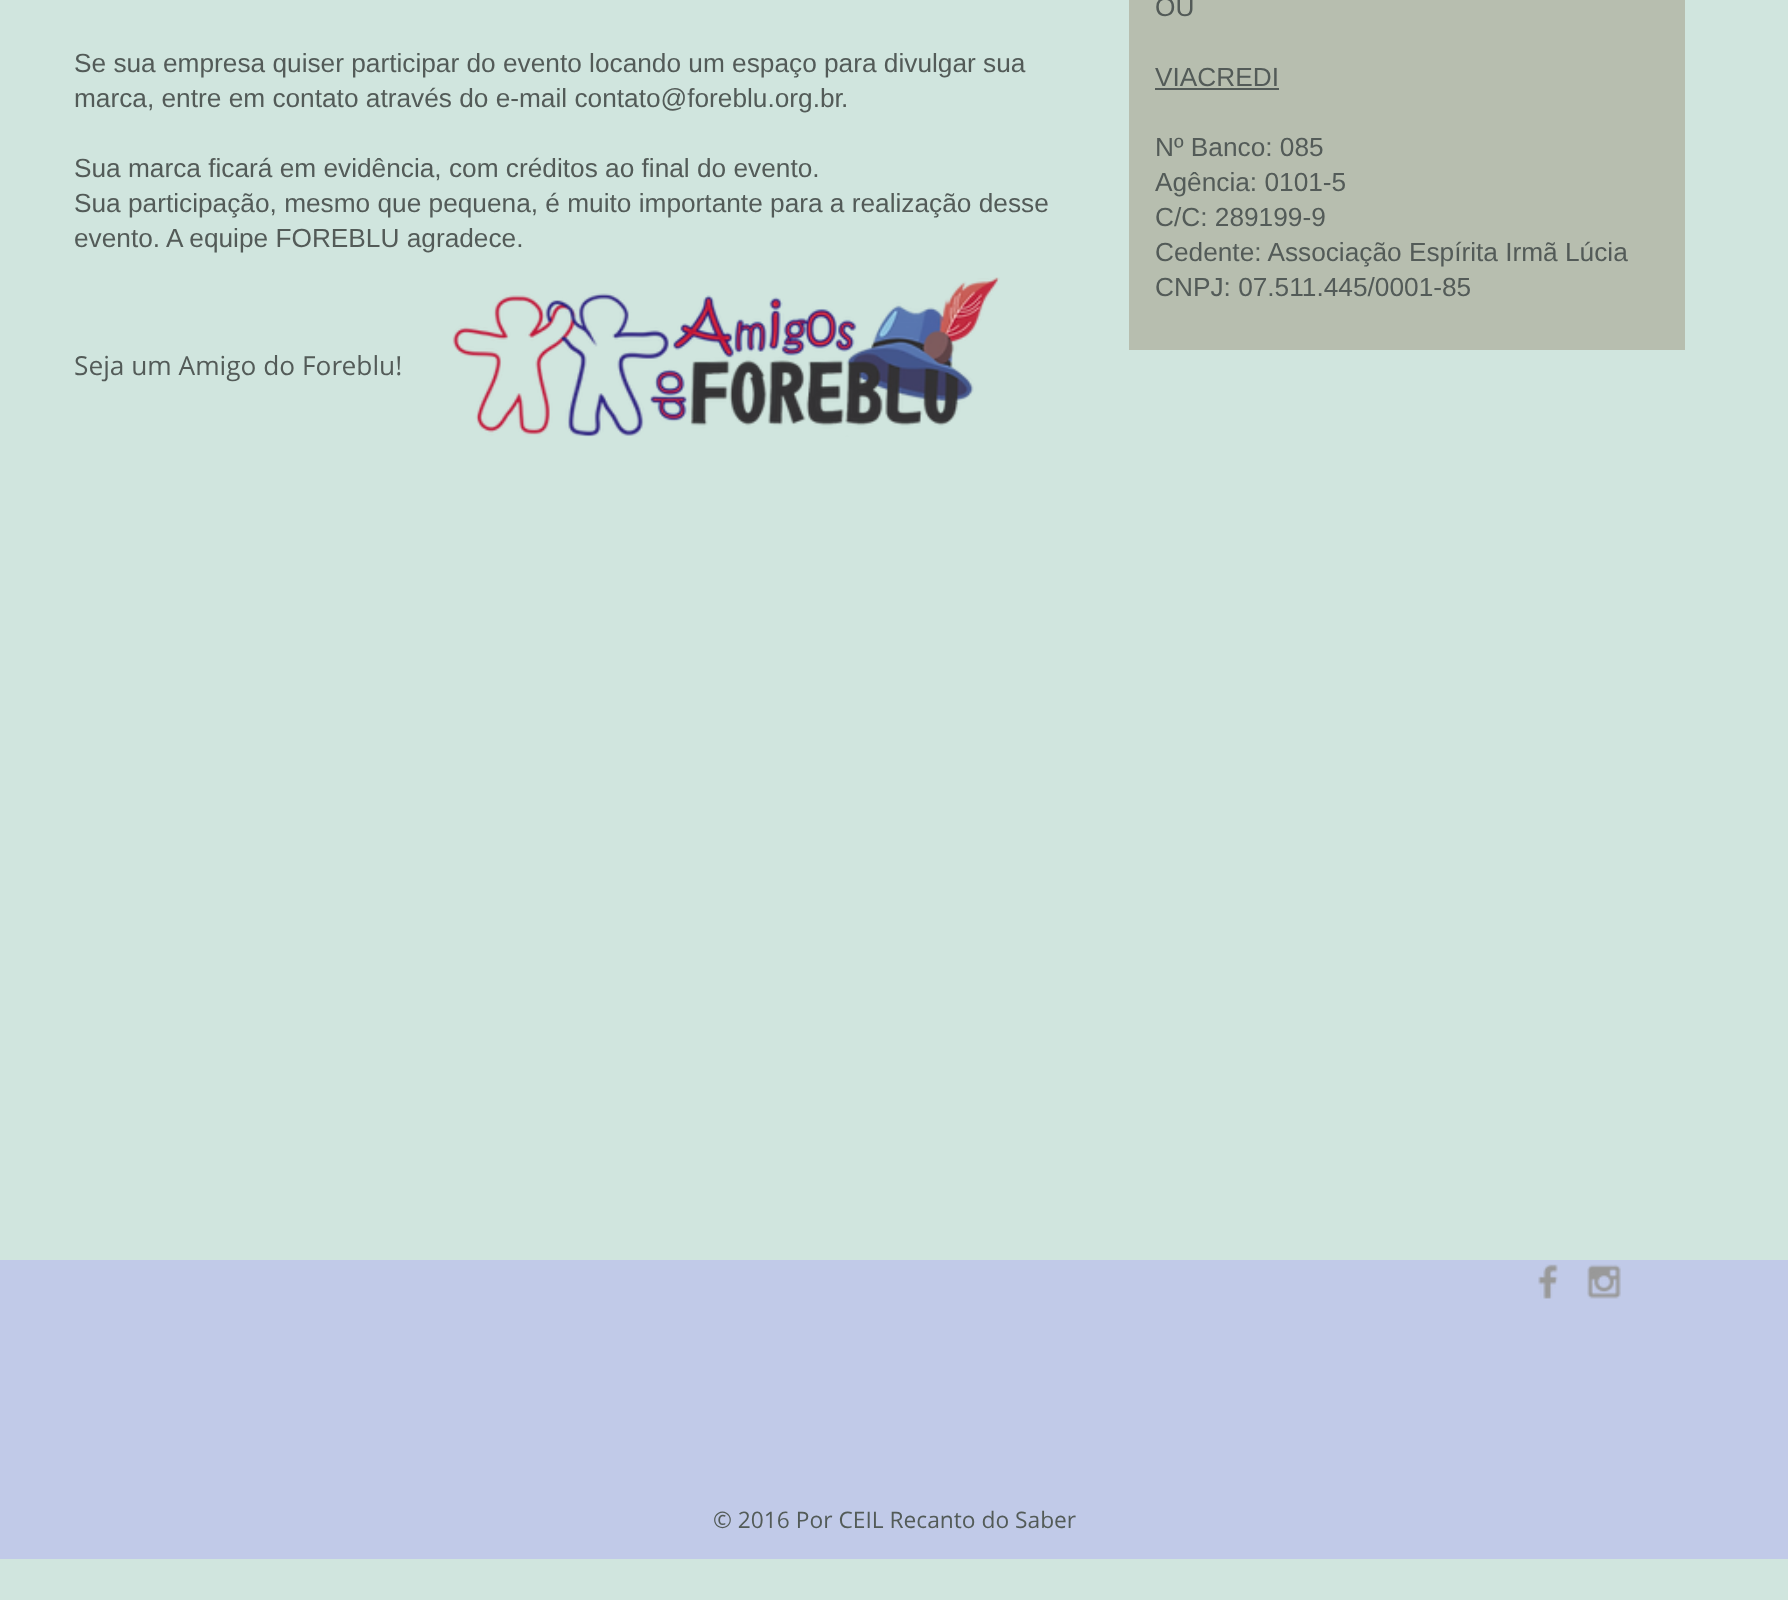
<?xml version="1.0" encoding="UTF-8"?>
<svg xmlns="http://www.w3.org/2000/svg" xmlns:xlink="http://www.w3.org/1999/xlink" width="1788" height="1600">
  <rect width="100%" height="100%" fill="#d0e5de" />
  <rect x="1129" width="556" height="350" fill="#b7beaf" />
  <rect x="1155" y="88" width="124" height="2" fill="#535b58" />
  <image x="452" y="277" width="548" height="160" xlink:href="image1.png" />
  <rect y="1260" width="1788" height="299" fill="#c1cae8" />
  <image x="1538" y="1264" width="20" height="35" xlink:href="image2.png" />
  <image x="1587" y="1264" width="34" height="35" xlink:href="image3.png" />
  <text x="74" y="72" style="font-family: Liberation Sans; font-size: 26.25px; fill: #535b58">Se sua empresa quiser participar do evento locando um espaço para divulgar sua</text>
  <text x="74" y="107" style="font-family: Liberation Sans; font-size: 26.25px; fill: #535b58">marca, entre em contato através do e-mail contato@foreblu.org.br</text>
  <text x="841" y="107" style="font-family: Liberation Sans; font-size: 26.25px; fill: #535b58">.</text>
  <text x="74" y="177" style="font-family: Liberation Sans; font-size: 26.25px; fill: #535b58">Sua marca ficará em evidência, com créditos ao final do evento.</text>
  <text x="74" y="212" style="font-family: Liberation Sans; font-size: 26.25px; fill: #535b58">Sua participação, mesmo que pequena, é muito importante para a realização desse</text>
  <text x="74" y="247" style="font-family: Liberation Sans; font-size: 26.25px; fill: #535b58">evento. A equipe FOREBLU agradece.</text>
  <text x="1155" y="16" style="font-family: Liberation Sans; font-size: 26.25px; fill: #535b58">OU</text>
  <text x="1155" y="86" style="font-family: Liberation Sans; font-size: 26.25px; fill: #535b58">VIACREDI</text>
  <text x="1155" y="156" style="font-family: Liberation Sans; font-size: 26.25px; fill: #535b58">Nº Banco: 085</text>
  <text x="1155" y="191" style="font-family: Liberation Sans; font-size: 26.25px; fill: #535b58">Agência: 0101-5</text>
  <text x="1155" y="226" style="font-family: Liberation Sans; font-size: 26.25px; fill: #535b58">C/C: 289199-9</text>
  <text x="1155" y="261" style="font-family: Liberation Sans; font-size: 26.25px; fill: #535b58">Cedente: Associação Espírita Irmã Lúcia</text>
  <text x="1155" y="296" style="font-family: Liberation Sans; font-size: 26.25px; fill: #535b58">CNPJ: 07.511.445/0001-85</text>
  <text x="74" y="375" style="font-family: Open Sans; font-size: 26.25px; fill: #535b58">Seja um Amigo do Foreblu!</text>
  <text x="713" y="1528" style="font-family: Open Sans; font-size: 22.75px; fill: #535b58">© 2016 Por CEIL Recanto do Saber</text>
</svg>
